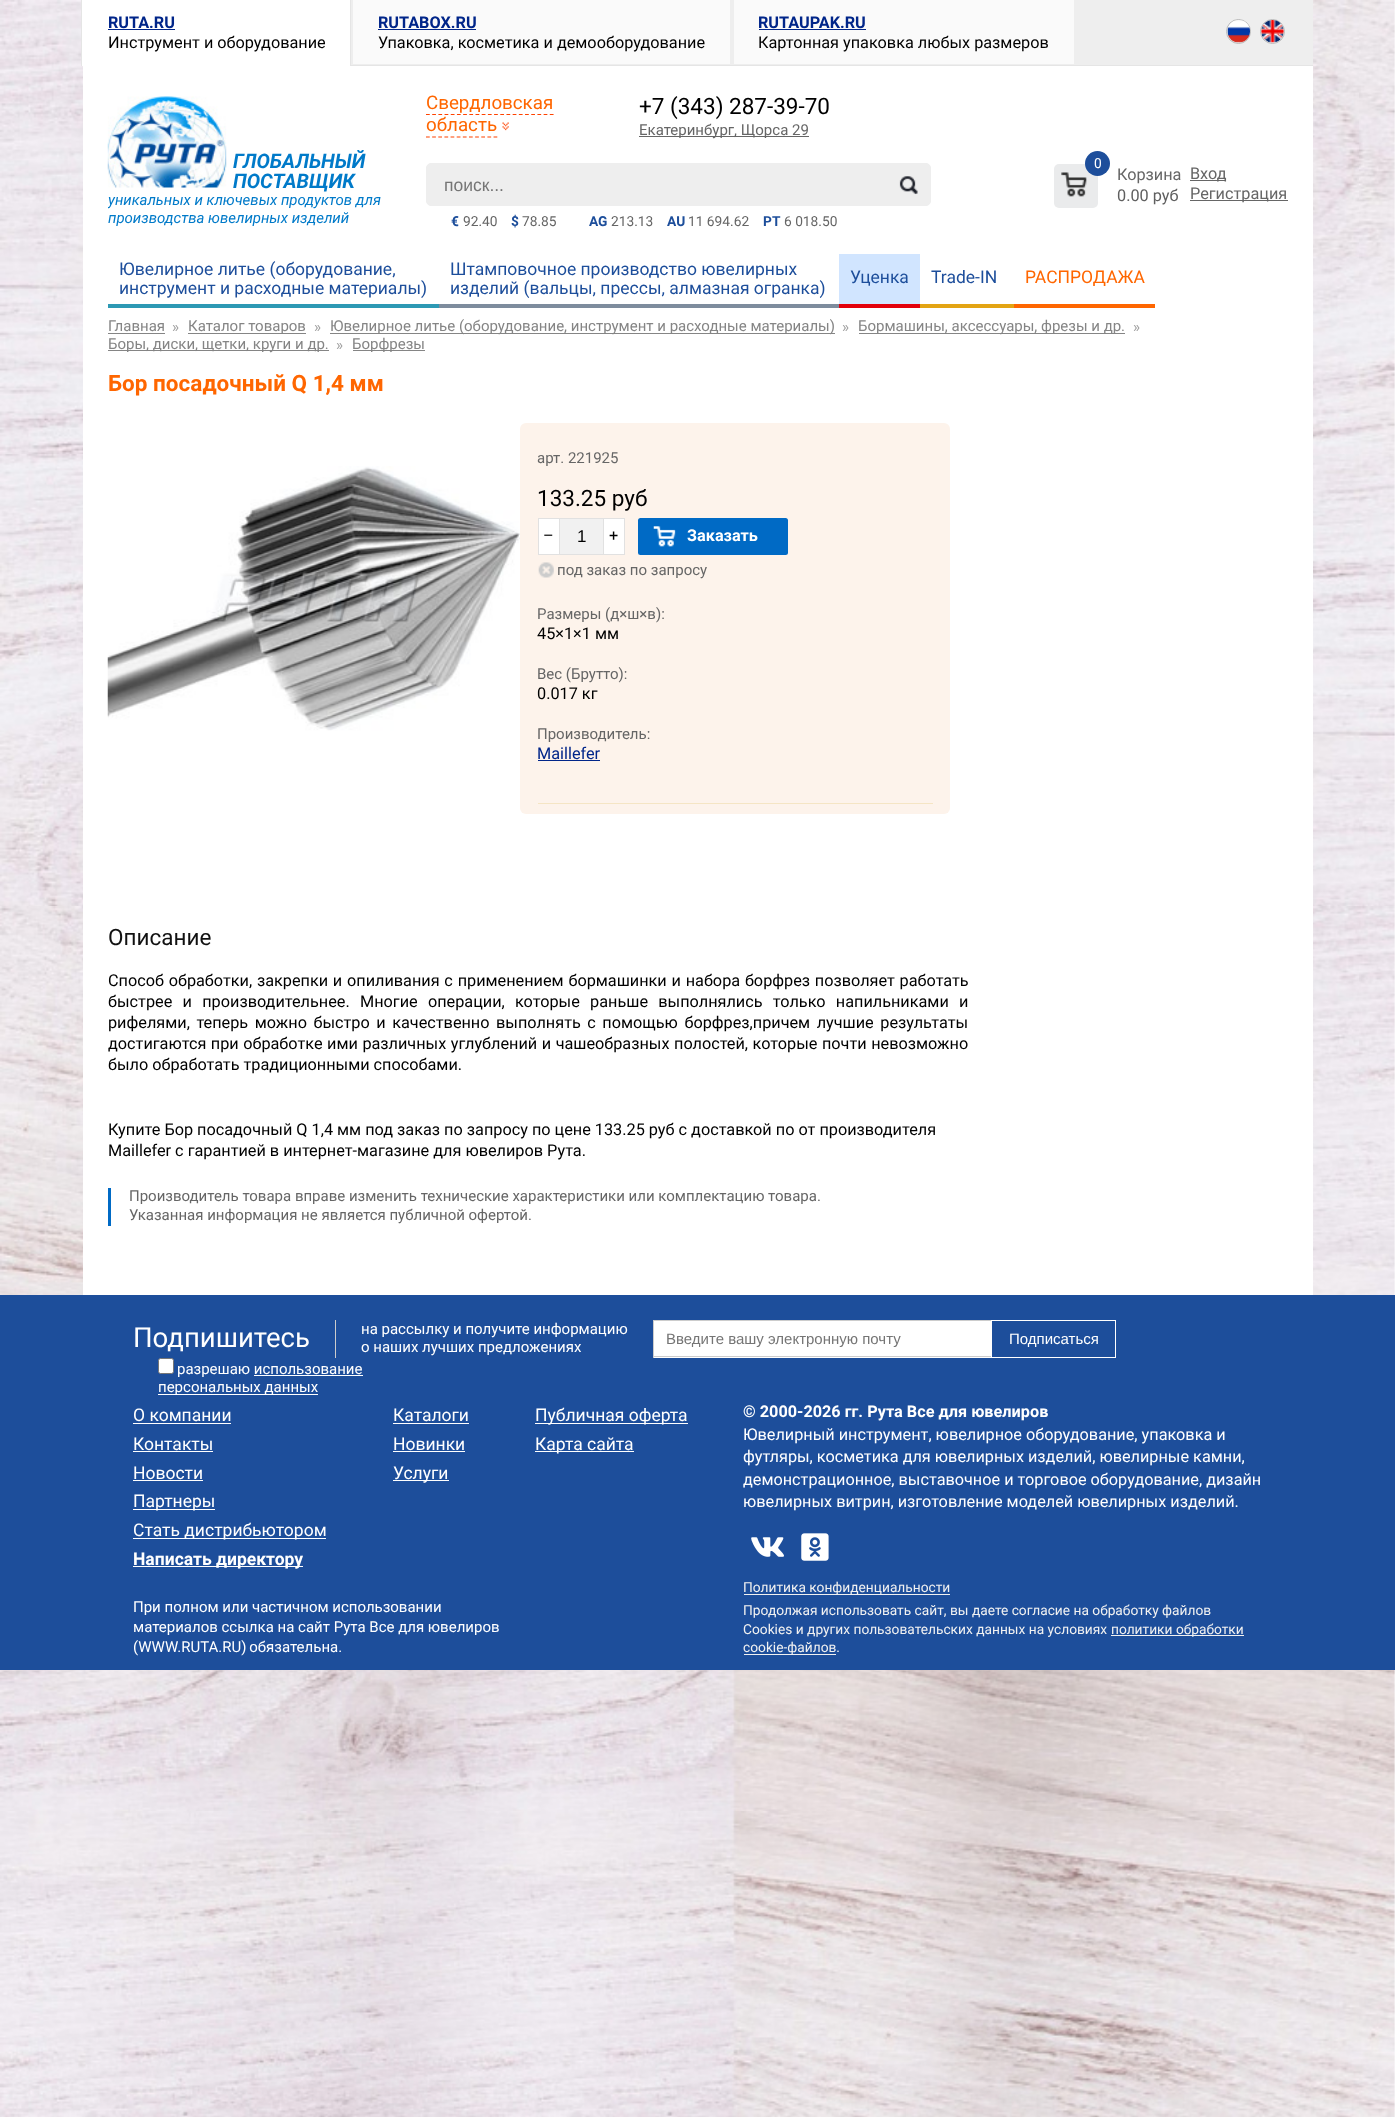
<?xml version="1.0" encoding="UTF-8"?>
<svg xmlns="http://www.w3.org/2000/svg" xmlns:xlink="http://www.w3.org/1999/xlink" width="1395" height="2117">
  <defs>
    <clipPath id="clip1"><rect x="108" y="96" width="300" height="132" /></clipPath>
    <clipPath id="clip2"><rect x="108" y="923" width="860" height="172" /></clipPath>
  </defs>
  <rect width="100%" height="100%" fill="#ffffff" />
  <image x="0" y="0" width="1395" height="2117" xlink:href="image1.png" />
  <rect x="83" y="66" width="1230" height="1229" fill="#ffffff" />
  <rect x="351" width="962" height="65" fill="#eeeeee" />
  <rect x="351" y="65" width="962" height="1" fill="#e5e5e5" />
  <rect x="82" width="268" height="66" fill="#ffffff" />
  <rect x="350" width="1" height="66" fill="#e5e5e5" />
  <rect x="81" width="1" height="66" fill="#e5e5e5" />
  <rect x="108" y="29" width="67" height="1" fill="#002589" />
  <rect x="353" width="377" height="64" fill="#fafafa" />
  <rect x="378" y="29" width="98" height="1" fill="#002589" />
  <rect x="734" width="340" height="64" fill="#fafafa" />
  <rect x="759" y="29" width="107" height="1" fill="#002589" />
  <circle cx="1238.5" cy="31.5" r="12" fill="none" stroke="#b9b9b9" />
  <circle cx="1272.5" cy="31.5" r="12" fill="none" stroke="#b9b9b9" />
  <image x="1227" y="20" width="23" height="23" xlink:href="image2.png" />
  <image x="1261" y="20" width="23" height="23" xlink:href="image3.png" />
  <path d="M 426 114.5 h 128" fill="none" stroke="#fe4200" stroke-width="1.2" stroke-dasharray="3.75 2.44" />
  <path d="M 426 137 h 71.5" fill="none" stroke="#fe4200" stroke-width="1.2" stroke-dasharray="3.75 2.39" />
  <image x="502" y="122" width="7" height="9" xlink:href="image4.png" />
  <rect x="639" y="136" width="170" height="1" fill="#666666" />
  <image x="107" y="96" width="120" height="92" xlink:href="image5.png" />
  <rect x="426.5" y="163.5" width="504" height="42" rx="4.5" fill="#eeeeee" stroke="#eeeeee" />
  <image x="899" y="176" width="19" height="19" xlink:href="image6.png" />
  <rect x="1054" y="164" width="44" height="44" rx="5" fill="#eaebec" />
  <image x="1061" y="172" width="26" height="25" xlink:href="image7.png" />
  <circle cx="1097.5" cy="163.5" r="12.5" fill="#1d4e9b" />
  <rect x="1190" y="180" width="36" height="1" fill="#666666" />
  <rect x="1190" y="200" width="98" height="1" fill="#666666" />
  <rect x="108" y="304" width="331" height="4" fill="#2d99b4" />
  <rect x="439" y="304" width="400" height="4" fill="#7e8c9d" />
  <rect x="839" y="254" width="81" height="50" fill="#d1e5ff" />
  <rect x="839" y="304" width="81" height="4" fill="#e3000b" />
  <rect x="920" y="304" width="94" height="4" fill="#e3a413" />
  <rect x="1014" y="304" width="141" height="4" fill="#ff6600" />
  <rect x="108" y="333" width="57" height="1" fill="#858585" />
  <rect x="188" y="333" width="118" height="1" fill="#858585" />
  <rect x="330" y="333" width="505" height="1" fill="#858585" />
  <rect x="859" y="333" width="266" height="1" fill="#858585" />
  <rect x="108" y="350" width="221" height="1" fill="#858585" />
  <rect x="353" y="350" width="72" height="1" fill="#858585" />
  <image x="107" y="466" width="413" height="265" xlink:href="image8.png" />
  <rect x="520" y="423" width="430" height="391" rx="6" fill="#fdf3eb" />
  <rect x="560" y="519" width="43" height="35" fill="#f1f1f1" />
  <rect x="538.5" y="518.5" width="86" height="36" fill="none" stroke="#e1e1e1" />
  <rect x="538.5" y="518.5" width="21" height="36" fill="#ffffff" stroke="#e1e1e1" />
  <rect x="603.5" y="518.5" width="21" height="36" fill="#ffffff" stroke="#e1e1e1" />
  <rect x="638" y="518" width="150" height="37" rx="2.5" fill="#006ac5" />
  <image x="653" y="526" width="23" height="21" xlink:href="image9.png" />
  <image x="538" y="562" width="16" height="16" xlink:href="image10.png" />
  <rect x="538" y="760" width="62" height="1" fill="#002589" />
  <rect x="538" y="803" width="395" height="1" fill="#f5e5c4" />
  <rect x="108" y="1188" width="3" height="38" fill="#006ac5" />
  <rect y="1295" width="1395" height="375" fill="#1d4e9b" />
  <rect x="335" y="1320" width="1" height="38" fill="#cccccc" />
  <rect x="654" y="1321" width="337" height="37" fill="#ffffff" />
  <rect x="653" y="1320" width="338" height="1" fill="#cccccc" />
  <rect x="653" y="1356" width="338" height="1" fill="#cccccc" />
  <rect x="653" y="1320" width="1" height="38" fill="#cccccc" />
  <rect x="991.5" y="1320.5" width="124" height="37" fill="none" stroke="#ffffff" />
  <rect x="158.5" y="1358.5" width="15" height="15" rx="2" fill="#ffffff" stroke="#767676" />
  <rect x="254" y="1375" width="109" height="1" fill="#ffffff" />
  <rect x="158" y="1394" width="160" height="1" fill="#ffffff" />
  <rect x="133" y="1423" width="98" height="1" fill="#ffffff" />
  <rect x="133" y="1451" width="80" height="1" fill="#ffffff" />
  <rect x="133" y="1480" width="70" height="1" fill="#ffffff" />
  <rect x="133" y="1509" width="82" height="1" fill="#ffffff" />
  <rect x="133" y="1538" width="193" height="1" fill="#ffffff" />
  <rect x="393" y="1423" width="76" height="1" fill="#ffffff" />
  <rect x="393" y="1451" width="72" height="1" fill="#ffffff" />
  <rect x="393" y="1480" width="56" height="1" fill="#ffffff" />
  <rect x="535" y="1423" width="153" height="1" fill="#ffffff" />
  <rect x="535" y="1451" width="99" height="1" fill="#ffffff" />
  <rect x="133" y="1566" width="170" height="1" fill="#ffffff" />
  <image x="751" y="1537" width="33" height="20" xlink:href="image11.png" />
  <image x="801" y="1533" width="28" height="28" xlink:href="image12.png" />
  <rect x="744" y="1594" width="206" height="1" fill="#f1f1f1" />
  <rect x="1111" y="1635" width="133" height="1" fill="#f1f1f1" />
  <rect x="744" y="1654" width="92" height="1" fill="#f1f1f1" />
  <text x="108" y="28" style="font-family: Roboto; font-size: 16.25px; font-weight: bold; fill: #002589">RUTA.RU</text>
  <text x="108" y="48" style="font-family: Roboto; font-size: 16.25px; fill: #000000">Инструмент и оборудование</text>
  <text x="378" y="28" style="font-family: Roboto; font-size: 16.25px; font-weight: bold; fill: #002589">RUTABOX.RU</text>
  <text x="378" y="48" style="font-family: Roboto; font-size: 16.25px; fill: #000000">Упаковка, косметика и демооборудование</text>
  <text x="758" y="28" style="font-family: Roboto; font-size: 16.25px; font-weight: bold; fill: #002589">RUTAUPAK.RU</text>
  <text x="758" y="48" style="font-family: Roboto; font-size: 16.25px; fill: #000000">Картонная упаковка любых размеров</text>
  <text x="426" y="109" style="font-family: Roboto; font-size: 18.75px; fill: #ff6600">Свердловская</text>
  <text x="426" y="131" style="font-family: Roboto; font-size: 18.75px; fill: #ff6600">область</text>
  <text x="639" y="114" style="font-family: Roboto; font-size: 22.5px; fill: #000000">+7 (343) 287-39-70</text>
  <text x="639" y="135" style="font-family: Roboto; font-size: 15px; fill: #666666">Екатеринбург, Щорса 29</text>
  <text x="233" y="168" style="font-family: Roboto; font-size: 20px; font-weight: bold; font-style: italic; fill: #007ac9">ГЛОБАЛЬНЫЙ</text>
  <text x="233" y="188" style="font-family: Roboto; font-size: 20px; font-weight: bold; font-style: italic; fill: #007ac9">ПОСТАВЩИК</text>
  <g clip-path="url(#clip1)">
    <text x="108" y="205" style="font-family: Roboto; font-size: 15px; font-style: italic; fill: #007ac9">уникальных и ключевых продуктов для</text>
  </g>
  <text x="108" y="223" style="font-family: Roboto; font-size: 15px; font-style: italic; fill: #007ac9">производства ювелирных изделий</text>
  <text x="444" y="191" style="font-family: Liberation Sans; font-size: 17.5px; fill: #757575">поиск...</text>
  <text x="1094" y="168" style="font-family: Roboto; font-size: 13.75px; fill: #ffffff">0</text>
  <text x="1117" y="180" style="font-family: Roboto; font-size: 16.25px; fill: #666666">Корзина</text>
  <text x="1117" y="201" style="font-family: Roboto; font-size: 16.25px; fill: #5f5f5f">0.00 руб</text>
  <text x="1190" y="179" style="font-family: Roboto; font-size: 16.25px; fill: #666666">Вход</text>
  <text x="1190" y="199" style="font-family: Roboto; font-size: 16.25px; fill: #666666">Регистрация</text>
  <text x="451" y="226" style="font-family: Roboto; font-size: 13.75px; font-weight: bold; fill: #1d4e9b">€</text>
  <text x="463" y="226" style="font-family: Roboto; font-size: 13.75px; fill: #666666">92.40</text>
  <text x="511" y="226" style="font-family: Roboto; font-size: 13.75px; font-weight: bold; fill: #1d4e9b">$</text>
  <text x="522" y="226" style="font-family: Roboto; font-size: 13.75px; fill: #666666">78.85</text>
  <text x="589" y="226" style="font-family: Roboto; font-size: 13.75px; font-weight: bold; fill: #1d4e9b">AG</text>
  <text x="611" y="226" style="font-family: Roboto; font-size: 13.75px; fill: #666666">213.13</text>
  <text x="667" y="226" style="font-family: Roboto; font-size: 13.75px; font-weight: bold; fill: #1d4e9b">AU</text>
  <text x="688" y="226" style="font-family: Roboto; font-size: 13.75px; fill: #666666">11 694.62</text>
  <text x="763" y="226" style="font-family: Roboto; font-size: 13.75px; font-weight: bold; fill: #1d4e9b">PT</text>
  <text x="784" y="226" style="font-family: Roboto; font-size: 13.75px; fill: #666666">6 018.50</text>
  <text x="119" y="275" style="font-family: Roboto; font-size: 17.5px; fill: #1d4e9b">Ювелирное литье (оборудование,</text>
  <text x="119" y="294" style="font-family: Roboto; font-size: 17.5px; fill: #1d4e9b">инструмент и расходные материалы)</text>
  <text x="450" y="275" style="font-family: Roboto; font-size: 17.5px; fill: #1d4e9b">Штамповочное производство ювелирных</text>
  <text x="450" y="294" style="font-family: Roboto; font-size: 17.5px; fill: #1d4e9b">изделий (вальцы, прессы, алмазная огранка)</text>
  <text x="850" y="283" style="font-family: Roboto; font-size: 17.5px; fill: #1d4e9b">Уценка</text>
  <text x="931" y="283" style="font-family: Roboto; font-size: 17.5px; fill: #1d4e9b">Trade-IN</text>
  <text x="1025" y="283" style="font-family: Roboto; font-size: 17.5px; fill: #ff6600">РАСПРОДАЖА</text>
  <text x="108" y="331" style="font-family: Roboto; font-size: 15px; fill: #858585">Главная</text>
  <text x="172" y="332" style="font-family: Roboto; font-size: 15px; fill: #a0a0a0">»</text>
  <text x="188" y="331" style="font-family: Roboto; font-size: 15px; fill: #858585">Каталог товаров</text>
  <text x="314" y="332" style="font-family: Roboto; font-size: 15px; fill: #a0a0a0">»</text>
  <text x="330" y="331" style="font-family: Roboto; font-size: 15px; fill: #858585">Ювелирное литье (оборудование, инструмент и расходные материалы)</text>
  <text x="842" y="332" style="font-family: Roboto; font-size: 15px; fill: #a0a0a0">»</text>
  <text x="858" y="331" style="font-family: Roboto; font-size: 15px; fill: #858585">Бормашины, аксессуары, фрезы и др.</text>
  <text x="1133" y="332" style="font-family: Roboto; font-size: 15px; fill: #a0a0a0">»</text>
  <text x="108" y="349" style="font-family: Roboto; font-size: 15px; fill: #858585">Боры, диски, щетки, круги и др.</text>
  <text x="336" y="350" style="font-family: Roboto; font-size: 15px; fill: #a0a0a0">»</text>
  <text x="352" y="349" style="font-family: Roboto; font-size: 15px; fill: #858585">Борфрезы</text>
  <text x="108" y="391" style="font-family: Roboto; font-size: 22.5px; font-weight: bold; fill: #ff6600">Бор посадочный Q 1,4 мм</text>
  <text x="537" y="463" style="font-family: Roboto; font-size: 15px; fill: #666666">арт. 221925</text>
  <text x="537" y="506" style="font-family: Roboto; font-size: 22.5px; fill: #000000">133.25 руб</text>
  <text x="543" y="541" style="font-family: Roboto; font-size: 16.25px; fill: #000000">–</text>
  <text x="577" y="542" style="font-family: Liberation Sans; font-size: 17px; fill: #000000">1</text>
  <text x="609" y="541" style="font-family: Roboto; font-size: 16.25px; fill: #000000">+</text>
  <text x="687" y="541" style="font-family: Roboto; font-size: 16.25px; font-weight: bold; fill: #ffffff">Заказать</text>
  <text x="557" y="575" style="font-family: Roboto; font-size: 15px; fill: #666666">под заказ по запросу</text>
  <text x="537" y="619" style="font-family: Roboto; font-size: 15px; fill: #666666">Размеры (д×ш×в):</text>
  <text x="537" y="639" style="font-family: Roboto; font-size: 16.25px; fill: #000000">45×1×1 мм</text>
  <text x="537" y="679" style="font-family: Roboto; font-size: 15px; fill: #666666">Вес (Брутто):</text>
  <text x="537" y="699" style="font-family: Roboto; font-size: 16.25px; fill: #000000">0.017 кг</text>
  <text x="537" y="739" style="font-family: Roboto; font-size: 15px; fill: #666666">Производитель:</text>
  <text x="537" y="759" style="font-family: Roboto; font-size: 16.25px; fill: #002589">Maillefer</text>
  <text x="108" y="945" style="font-family: Roboto; font-size: 22.5px; fill: #111111">Описание</text>
  <text x="108" y="986" word-spacing="0.75" style="font-family: Roboto; font-size: 16.25px; fill: #000000">Способ обработки, закрепки и опиливания с применением бормашинки и набора борфрез позволяет работать</text>
  <text x="108" y="1007" word-spacing="6.25" style="font-family: Roboto; font-size: 16.25px; fill: #000000">быстрее и производительнее. Многие операции, которые раньше выполнялись только напильниками и</text>
  <text x="108" y="1028" word-spacing="2.5" style="font-family: Roboto; font-size: 16.25px; fill: #000000">рифелями, теперь можно быстро и качественно выполнять с помощью борфрез,причем лучшие результаты</text>
  <g clip-path="url(#clip2)">
    <text x="108" y="1049" word-spacing="0.5" style="font-family: Roboto; font-size: 16.25px; fill: #000000">достигаются при обработке ими различных углублений и чашеобразных полостей, которые почти невозможно</text>
  </g>
  <text x="108" y="1070" style="font-family: Roboto; font-size: 16.25px; fill: #000000">было обработать традиционными способами.</text>
  <text x="108" y="1135" style="font-family: Roboto; font-size: 16.25px; fill: #000000">Купите Бор посадочный Q 1,4 мм под заказ по запросу по цене 133.25 руб с доставкой по от производителя</text>
  <text x="108" y="1156" style="font-family: Roboto; font-size: 16.25px; fill: #000000">Maillefer с гарантией в интернет-магазине для ювелиров Рута.</text>
  <text x="129" y="1201" style="font-family: Roboto; font-size: 15px; fill: #666666">Производитель товара вправе изменить технические характеристики или комплектацию товара.</text>
  <text x="129" y="1220" style="font-family: Roboto; font-size: 15px; fill: #666666">Указанная информация не является публичной офертой.</text>
  <text x="133" y="1347" style="font-family: Roboto; font-size: 27.5px; fill: #ffffff">Подпишитесь</text>
  <text x="361" y="1334" style="font-family: Roboto; font-size: 15px; fill: #ffffff">на рассылку и получите информацию</text>
  <text x="361" y="1352" style="font-family: Roboto; font-size: 15px; fill: #ffffff">о наших лучших предложениях</text>
  <text x="666" y="1344" style="font-family: Liberation Sans; font-size: 15px; fill: #757575">Введите вашу электронную почту</text>
  <text x="1009" y="1344" style="font-family: Liberation Sans; font-size: 15px; fill: #ffffff">Подписаться</text>
  <text x="177" y="1374" style="font-family: Roboto; font-size: 15px; fill: #ffffff">разрешаю использование</text>
  <text x="158" y="1392" style="font-family: Roboto; font-size: 15px; fill: #ffffff">персональных данных</text>
  <text x="133" y="1421" style="font-family: Roboto; font-size: 17.5px; fill: #ffffff">О компании</text>
  <text x="133" y="1450" style="font-family: Roboto; font-size: 17.5px; fill: #ffffff">Контакты</text>
  <text x="133" y="1479" style="font-family: Roboto; font-size: 17.5px; fill: #ffffff">Новости</text>
  <text x="133" y="1507" style="font-family: Roboto; font-size: 17.5px; fill: #ffffff">Партнеры</text>
  <text x="133" y="1536" style="font-family: Roboto; font-size: 17.5px; fill: #ffffff">Стать дистрибьютором</text>
  <text x="393" y="1421" style="font-family: Roboto; font-size: 17.5px; fill: #ffffff">Каталоги</text>
  <text x="393" y="1450" style="font-family: Roboto; font-size: 17.5px; fill: #ffffff">Новинки</text>
  <text x="393" y="1479" style="font-family: Roboto; font-size: 17.5px; fill: #ffffff">Услуги</text>
  <text x="535" y="1421" style="font-family: Roboto; font-size: 17.5px; fill: #ffffff">Публичная оферта</text>
  <text x="535" y="1450" style="font-family: Roboto; font-size: 17.5px; fill: #ffffff">Карта сайта</text>
  <text x="133" y="1565" style="font-family: Roboto; font-size: 17.5px; font-weight: bold; fill: #ffffff">Написать директору</text>
  <text x="743" y="1417" style="font-family: Roboto; font-size: 16.25px; font-weight: bold; fill: #ffffff">© 2000-2026 гг. Рута Все для ювелиров</text>
  <text x="743" y="1440" style="font-family: Roboto; font-size: 16.25px; fill: #ffffff">Ювелирный инструмент, ювелирное оборудование, упаковка и</text>
  <text x="743" y="1462" style="font-family: Roboto; font-size: 16.25px; fill: #ffffff">футляры, косметика для ювелирных изделий, ювелирные камни,</text>
  <text x="743" y="1485" style="font-family: Roboto; font-size: 16.25px; fill: #ffffff">демонстрационное, выставочное и торговое оборудование, дизайн</text>
  <text x="743" y="1507" style="font-family: Roboto; font-size: 16.25px; fill: #ffffff">ювелирных витрин, изготовление моделей ювелирных изделий.</text>
  <text x="133" y="1612" style="font-family: Roboto; font-size: 15px; fill: #ffffff">При полном или частичном использовании</text>
  <text x="133" y="1632" style="font-family: Roboto; font-size: 15px; fill: #ffffff">материалов ссылка на сайт Рута Все для ювелиров</text>
  <text x="133" y="1652" word-spacing="-1" style="font-family: Roboto; font-size: 15px; fill: #ffffff">(WWW.RUTA.RU) обязательна.</text>
  <text x="743" y="1592" style="font-family: Roboto; font-size: 13.75px; fill: #f1f1f1">Политика конфиденциальности</text>
  <text x="743" y="1615" style="font-family: Roboto; font-size: 13.75px; fill: #f1f1f1">Продолжая использовать сайт, вы даете согласие на обработку файлов</text>
  <text x="743" y="1634" style="font-family: Roboto; font-size: 13.75px; fill: #f1f1f1">Cookies и других пользовательских данных на условиях</text>
  <text x="1111" y="1634" style="font-family: Roboto; font-size: 13.75px; fill: #f1f1f1">политики обработки</text>
  <text x="743" y="1652" style="font-family: Roboto; font-size: 13.75px; fill: #f1f1f1">cookie-файлов.</text>
</svg>
